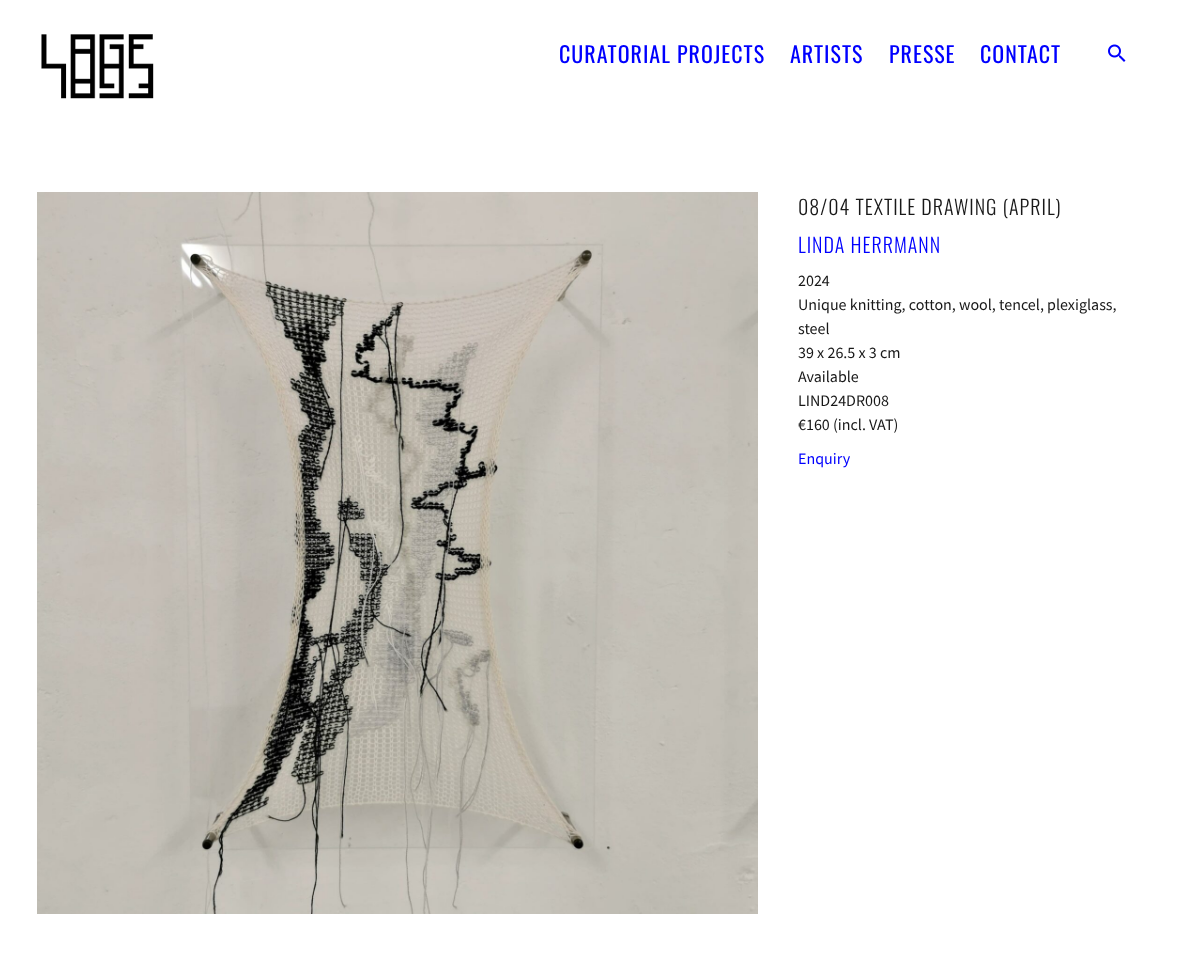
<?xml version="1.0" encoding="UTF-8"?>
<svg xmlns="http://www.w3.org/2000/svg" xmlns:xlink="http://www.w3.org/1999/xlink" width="1183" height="973">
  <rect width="100%" height="100%" fill="#ffffff" />
  <image x="41" y="34" width="113" height="65" xlink:href="image1.png" />
  <image x="1108" y="44" width="18" height="18" xlink:href="image2.png" />
  <image x="37" y="192" width="721" height="722" xlink:href="image3.png" />
  <text x="559" y="63" style="font-family: Oswald; font-size: 22px; letter-spacing: 1px; fill: #0000ff">CURATORIAL PROJECTS</text>
  <text x="790" y="63" style="font-family: Oswald; font-size: 22px; letter-spacing: 1px; fill: #0000ff">ARTISTS</text>
  <text x="889" y="63" style="font-family: Oswald; font-size: 22px; letter-spacing: 1px; fill: #0000ff">PRESSE</text>
  <text x="980" y="63" style="font-family: Oswald; font-size: 22px; letter-spacing: 1px; fill: #0000ff">CONTACT</text>
  <text x="798" y="215" style="font-family: Oswald; font-size: 20px; font-weight: 300; letter-spacing: 1px; fill: #181818">08/04 TEXTILE DRAWING (APRIL)</text>
  <text x="798" y="253" style="font-family: Oswald; font-size: 20px; font-weight: 300; letter-spacing: 1px; fill: #0000ff">LINDA HERRMANN</text>
  <text x="798" y="286" style="font-family: Source Sans Pro; font-size: 16px; fill: #181818">2024</text>
  <text x="798" y="310" style="font-family: Source Sans Pro; font-size: 16px; fill: #181818">Unique knitting, cotton, wool, tencel, plexiglass,</text>
  <text x="798" y="334" style="font-family: Source Sans Pro; font-size: 16px; fill: #181818">steel</text>
  <text x="798" y="358" style="font-family: Source Sans Pro; font-size: 16px; fill: #181818">39 x 26.5 x 3 cm</text>
  <text x="798" y="382" style="font-family: Source Sans Pro; font-size: 16px; fill: #181818">Available</text>
  <text x="798" y="406" style="font-family: Source Sans Pro; font-size: 16px; fill: #181818">LIND24DR008</text>
  <text x="798" y="430" style="font-family: Source Sans Pro; font-size: 16px; fill: #181818">€160 (incl. VAT)</text>
  <text x="798" y="464" style="font-family: Source Sans Pro; font-size: 16px; fill: #0000ff">Enquiry</text>
</svg>
